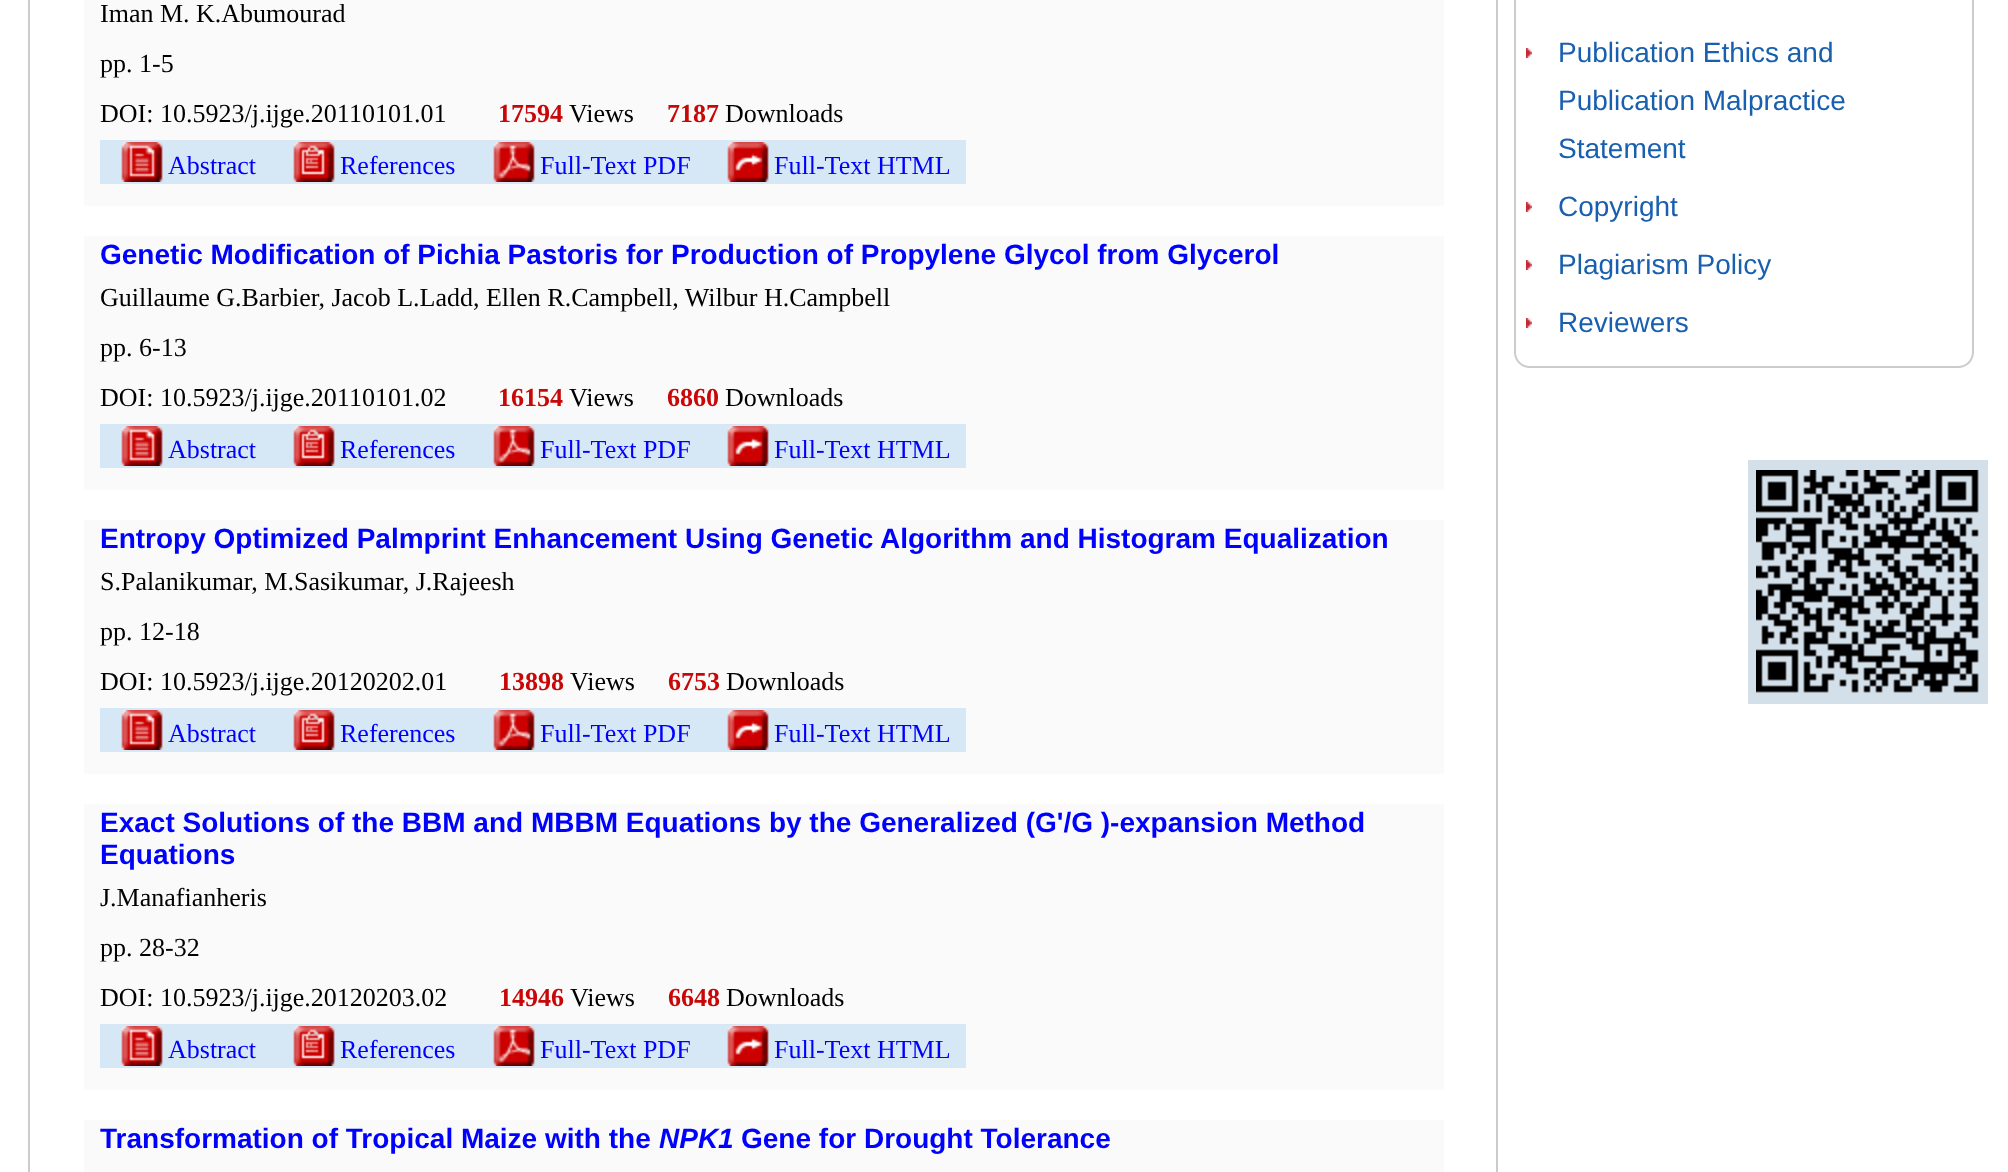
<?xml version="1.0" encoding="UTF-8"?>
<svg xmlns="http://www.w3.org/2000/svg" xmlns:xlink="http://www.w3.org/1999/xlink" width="2008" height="1172">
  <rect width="100%" height="100%" fill="#ffffff" />
  <path d="M 28 -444 h 1470 v 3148 c 0 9 -7 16 -16 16 h -1438 c -9 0 -16 -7 -16 -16 z m 2 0 h 1466 v 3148 c 0 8 -6 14 -14 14 h -1438 c -8 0 -14 -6 -14 -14 z" fill="#cccccc" fill-rule="evenodd" />
  <rect x="84" width="1360" height="206" fill="#fafafa" />
  <rect x="100" y="140" width="866" height="44" fill="#d6e7f5" />
  <image x="121" y="142" width="42" height="40" xlink:href="image1.png" />
  <image x="293" y="142" width="42" height="40" xlink:href="image2.png" />
  <image x="493" y="142" width="42" height="40" xlink:href="image3.png" />
  <image x="727" y="142" width="42" height="40" xlink:href="image4.png" />
  <rect x="84" y="236" width="1360" height="254" fill="#fafafa" />
  <rect x="100" y="424" width="866" height="44" fill="#d6e7f5" />
  <image x="121" y="426" width="42" height="40" xlink:href="image1.png" />
  <image x="293" y="426" width="42" height="40" xlink:href="image2.png" />
  <image x="493" y="426" width="42" height="40" xlink:href="image3.png" />
  <image x="727" y="426" width="42" height="40" xlink:href="image4.png" />
  <rect x="84" y="520" width="1360" height="254" fill="#fafafa" />
  <rect x="100" y="708" width="866" height="44" fill="#d6e7f5" />
  <image x="121" y="710" width="42" height="40" xlink:href="image1.png" />
  <image x="293" y="710" width="42" height="40" xlink:href="image2.png" />
  <image x="493" y="710" width="42" height="40" xlink:href="image3.png" />
  <image x="727" y="710" width="42" height="40" xlink:href="image4.png" />
  <rect x="84" y="804" width="1360" height="286" fill="#fafafa" />
  <rect x="100" y="1024" width="866" height="44" fill="#d6e7f5" />
  <image x="121" y="1026" width="42" height="40" xlink:href="image1.png" />
  <image x="293" y="1026" width="42" height="40" xlink:href="image2.png" />
  <image x="493" y="1026" width="42" height="40" xlink:href="image3.png" />
  <image x="727" y="1026" width="42" height="40" xlink:href="image4.png" />
  <rect x="84" y="1120" width="1360" height="52" fill="#fafafa" />
  <path d="M 1514 -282 h 460 v 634 c 0 9 -7 16 -16 16 h -428 c -9 0 -16 -7 -16 -16 z m 2 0 h 456 v 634 c 0 8 -6 14 -14 14 h -428 c -8 0 -14 -6 -14 -14 z" fill="#cccccc" fill-rule="evenodd" />
  <image x="1526" y="48" width="6" height="10" xlink:href="image5.png" />
  <image x="1526" y="202" width="6" height="10" xlink:href="image5.png" />
  <image x="1526" y="260" width="6" height="10" xlink:href="image5.png" />
  <image x="1526" y="318" width="6" height="10" xlink:href="image5.png" />
  <rect x="1748" y="460" width="240" height="244" fill="#d3e0ea" />
  <image x="1756" y="470" width="223" height="223" xlink:href="image6.png" />
  <text x="100" y="22" style="font-family: Liberation Serif; font-size: 26px; fill: #000000">Iman M. K.Abumourad</text>
  <text x="100" y="72" style="font-family: Liberation Serif; font-size: 26px; fill: #000000">pp. 1-5</text>
  <text x="100" y="122" style="font-family: Liberation Serif; font-size: 26px; fill: #000000">DOI: 10.5923/j.ijge.20110101.01</text>
  <text x="498" y="122" style="font-family: Liberation Serif; font-size: 26px; font-weight: bold; fill: #c80808">17594</text>
  <text x="569" y="122" style="font-family: Liberation Serif; font-size: 26px; fill: #000000">Views</text>
  <text x="667" y="122" style="font-family: Liberation Serif; font-size: 26px; font-weight: bold; fill: #c80808">7187</text>
  <text x="725" y="122" style="font-family: Liberation Serif; font-size: 26px; fill: #000000">Downloads</text>
  <text x="168" y="174" style="font-family: Liberation Serif; font-size: 26px; fill: #0000ff">Abstract</text>
  <text x="340" y="174" style="font-family: Liberation Serif; font-size: 26px; fill: #0000ff">References</text>
  <text x="540" y="174" style="font-family: Liberation Serif; font-size: 26px; fill: #0000ff">Full-Text PDF</text>
  <text x="774" y="174" style="font-family: Liberation Serif; font-size: 26px; fill: #0000ff">Full-Text HTML</text>
  <text x="100" y="264" style="font-family: Liberation Sans; font-size: 28px; font-weight: bold; fill: #0000ff">Genetic Modification of Pichia Pastoris for Production of Propylene Glycol from Glycerol</text>
  <text x="100" y="306" style="font-family: Liberation Serif; font-size: 26px; fill: #000000">Guillaume G.Barbier, Jacob L.Ladd, Ellen R.Campbell, Wilbur H.Campbell</text>
  <text x="100" y="356" style="font-family: Liberation Serif; font-size: 26px; fill: #000000">pp. 6-13</text>
  <text x="100" y="406" style="font-family: Liberation Serif; font-size: 26px; fill: #000000">DOI: 10.5923/j.ijge.20110101.02</text>
  <text x="498" y="406" style="font-family: Liberation Serif; font-size: 26px; font-weight: bold; fill: #c80808">16154</text>
  <text x="569" y="406" style="font-family: Liberation Serif; font-size: 26px; fill: #000000">Views</text>
  <text x="667" y="406" style="font-family: Liberation Serif; font-size: 26px; font-weight: bold; fill: #c80808">6860</text>
  <text x="725" y="406" style="font-family: Liberation Serif; font-size: 26px; fill: #000000">Downloads</text>
  <text x="168" y="458" style="font-family: Liberation Serif; font-size: 26px; fill: #0000ff">Abstract</text>
  <text x="340" y="458" style="font-family: Liberation Serif; font-size: 26px; fill: #0000ff">References</text>
  <text x="540" y="458" style="font-family: Liberation Serif; font-size: 26px; fill: #0000ff">Full-Text PDF</text>
  <text x="774" y="458" style="font-family: Liberation Serif; font-size: 26px; fill: #0000ff">Full-Text HTML</text>
  <text x="100" y="548" style="font-family: Liberation Sans; font-size: 28px; font-weight: bold; fill: #0000ff">Entropy Optimized Palmprint Enhancement Using Genetic Algorithm and Histogram Equalization</text>
  <text x="100" y="590" style="font-family: Liberation Serif; font-size: 26px; fill: #000000">S.Palanikumar, M.Sasikumar, J.Rajeesh</text>
  <text x="100" y="640" style="font-family: Liberation Serif; font-size: 26px; fill: #000000">pp. 12-18</text>
  <text x="100" y="690" style="font-family: Liberation Serif; font-size: 26px; fill: #000000">DOI: 10.5923/j.ijge.20120202.01</text>
  <text x="499" y="690" style="font-family: Liberation Serif; font-size: 26px; font-weight: bold; fill: #c80808">13898</text>
  <text x="570" y="690" style="font-family: Liberation Serif; font-size: 26px; fill: #000000">Views</text>
  <text x="668" y="690" style="font-family: Liberation Serif; font-size: 26px; font-weight: bold; fill: #c80808">6753</text>
  <text x="726" y="690" style="font-family: Liberation Serif; font-size: 26px; fill: #000000">Downloads</text>
  <text x="168" y="742" style="font-family: Liberation Serif; font-size: 26px; fill: #0000ff">Abstract</text>
  <text x="340" y="742" style="font-family: Liberation Serif; font-size: 26px; fill: #0000ff">References</text>
  <text x="540" y="742" style="font-family: Liberation Serif; font-size: 26px; fill: #0000ff">Full-Text PDF</text>
  <text x="774" y="742" style="font-family: Liberation Serif; font-size: 26px; fill: #0000ff">Full-Text HTML</text>
  <text x="100" y="832" style="font-family: Liberation Sans; font-size: 28px; font-weight: bold; fill: #0000ff">Exact Solutions of the BBM and MBBM Equations by the Generalized (G'/G )-expansion Method</text>
  <text x="100" y="864" style="font-family: Liberation Sans; font-size: 28px; font-weight: bold; fill: #0000ff">Equations</text>
  <text x="100" y="906" style="font-family: Liberation Serif; font-size: 26px; fill: #000000">J.Manafianheris</text>
  <text x="100" y="956" style="font-family: Liberation Serif; font-size: 26px; fill: #000000">pp. 28-32</text>
  <text x="100" y="1006" style="font-family: Liberation Serif; font-size: 26px; fill: #000000">DOI: 10.5923/j.ijge.20120203.02</text>
  <text x="499" y="1006" style="font-family: Liberation Serif; font-size: 26px; font-weight: bold; fill: #c80808">14946</text>
  <text x="570" y="1006" style="font-family: Liberation Serif; font-size: 26px; fill: #000000">Views</text>
  <text x="668" y="1006" style="font-family: Liberation Serif; font-size: 26px; font-weight: bold; fill: #c80808">6648</text>
  <text x="726" y="1006" style="font-family: Liberation Serif; font-size: 26px; fill: #000000">Downloads</text>
  <text x="168" y="1058" style="font-family: Liberation Serif; font-size: 26px; fill: #0000ff">Abstract</text>
  <text x="340" y="1058" style="font-family: Liberation Serif; font-size: 26px; fill: #0000ff">References</text>
  <text x="540" y="1058" style="font-family: Liberation Serif; font-size: 26px; fill: #0000ff">Full-Text PDF</text>
  <text x="774" y="1058" style="font-family: Liberation Serif; font-size: 26px; fill: #0000ff">Full-Text HTML</text>
  <text x="100" y="1148" style="font-family: Liberation Sans; font-size: 28px; font-weight: bold; fill: #0000ff">Transformation of Tropical Maize with the</text>
  <text x="659" y="1148" style="font-family: Liberation Sans; font-size: 28px; font-weight: bold; font-style: italic; fill: #0000ff">NPK1</text>
  <text x="741" y="1148" style="font-family: Liberation Sans; font-size: 28px; font-weight: bold; fill: #0000ff">Gene for Drought Tolerance</text>
  <text x="1558" y="62" style="font-family: Liberation Sans; font-size: 28px; fill: #185faf">Publication Ethics and</text>
  <text x="1558" y="110" style="font-family: Liberation Sans; font-size: 28px; fill: #185faf">Publication Malpractice</text>
  <text x="1558" y="158" style="font-family: Liberation Sans; font-size: 28px; fill: #185faf">Statement</text>
  <text x="1558" y="216" style="font-family: Liberation Sans; font-size: 28px; fill: #185faf">Copyright</text>
  <text x="1558" y="274" style="font-family: Liberation Sans; font-size: 28px; fill: #185faf">Plagiarism Policy</text>
  <text x="1558" y="332" style="font-family: Liberation Sans; font-size: 28px; fill: #185faf">Reviewers</text>
</svg>
